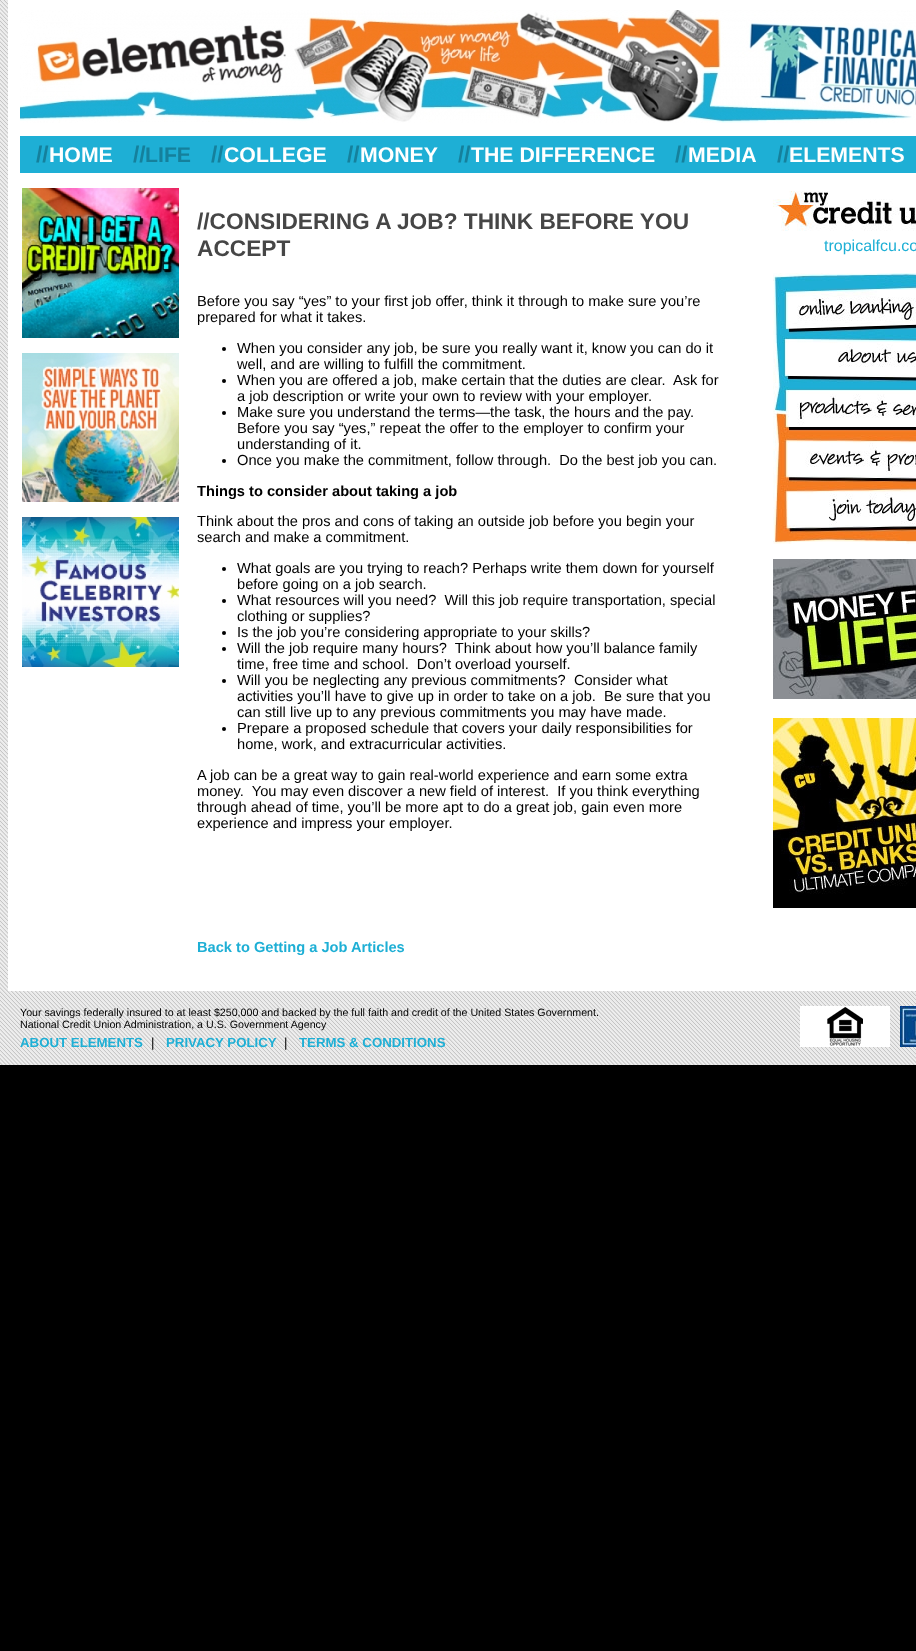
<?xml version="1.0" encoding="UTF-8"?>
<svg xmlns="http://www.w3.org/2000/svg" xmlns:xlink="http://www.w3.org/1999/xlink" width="916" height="1651">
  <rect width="100%" height="100%" fill="#000000" />
  <image x="0" y="0" width="916" height="1065" xlink:href="image1.png" />
  <rect x="8" width="908" height="991" fill="#ffffff" />
  <image x="20" y="10" width="896" height="113" xlink:href="image2.png" />
  <rect x="20" y="136" width="896" height="37" fill="#1eafd5" />
  <image x="22" y="188" width="157" height="150" xlink:href="image3.png" />
  <image x="22" y="353" width="157" height="149" xlink:href="image4.png" />
  <image x="22" y="517" width="157" height="150" xlink:href="image5.png" />
  <circle cx="224" cy="349" r="2" fill="#000000" />
  <circle cx="224" cy="381" r="2" fill="#000000" />
  <circle cx="224" cy="413" r="2" fill="#000000" />
  <circle cx="224" cy="461" r="2" fill="#000000" />
  <circle cx="224" cy="569" r="2" fill="#000000" />
  <circle cx="224" cy="601" r="2" fill="#000000" />
  <circle cx="224" cy="633" r="2" fill="#000000" />
  <circle cx="224" cy="649" r="2" fill="#000000" />
  <circle cx="224" cy="681" r="2" fill="#000000" />
  <circle cx="224" cy="729" r="2" fill="#000000" />
  <image x="773" y="191" width="143" height="40" xlink:href="image6.png" />
  <image x="773" y="273" width="143" height="62" xlink:href="image7.png" />
  <image x="773" y="335" width="143" height="51" xlink:href="image8.png" />
  <image x="773" y="386" width="143" height="49" xlink:href="image9.png" />
  <image x="773" y="435" width="143" height="50" xlink:href="image10.png" />
  <image x="773" y="485" width="143" height="59" xlink:href="image11.png" />
  <image x="773" y="559" width="143" height="140" xlink:href="image12.png" />
  <image x="773" y="718" width="143" height="190" xlink:href="image13.png" />
  <image x="800" y="1006" width="90" height="41" xlink:href="image14.png" />
  <image x="900" y="1006" width="16" height="41" xlink:href="image15.png" />
  <text x="36" y="162" style="font-family: Liberation Sans; font-size: 22.7px; font-weight: bold; fill: #15809c">//</text>
  <text x="49" y="162" style="font-family: Liberation Sans; font-size: 21.25px; font-weight: bold; fill: #ffffff">HOME</text>
  <text x="133" y="162" style="font-family: Liberation Sans; font-size: 22.7px; font-weight: bold; fill: #15809c">//</text>
  <text x="145" y="162" style="font-family: Liberation Sans; font-size: 21.25px; font-weight: bold; fill: #15809c">LIFE</text>
  <text x="211" y="162" style="font-family: Liberation Sans; font-size: 22.7px; font-weight: bold; fill: #15809c">//</text>
  <text x="224" y="162" style="font-family: Liberation Sans; font-size: 21.25px; font-weight: bold; fill: #ffffff">COLLEGE</text>
  <text x="347" y="162" style="font-family: Liberation Sans; font-size: 22.7px; font-weight: bold; fill: #15809c">//</text>
  <text x="360" y="162" style="font-family: Liberation Sans; font-size: 21.25px; font-weight: bold; fill: #ffffff">MONEY</text>
  <text x="458" y="162" style="font-family: Liberation Sans; font-size: 22.7px; font-weight: bold; fill: #15809c">//</text>
  <text x="471" y="162" style="font-family: Liberation Sans; font-size: 21.25px; font-weight: bold; fill: #ffffff">THE DIFFERENCE</text>
  <text x="675" y="162" style="font-family: Liberation Sans; font-size: 22.7px; font-weight: bold; fill: #15809c">//</text>
  <text x="688" y="162" style="font-family: Liberation Sans; font-size: 21.25px; font-weight: bold; fill: #ffffff">MEDIA</text>
  <text x="777" y="162" style="font-family: Liberation Sans; font-size: 22.7px; font-weight: bold; fill: #15809c">//</text>
  <text x="789" y="162" style="font-family: Liberation Sans; font-size: 21.25px; font-weight: bold; fill: #ffffff">ELEMENTS</text>
  <text x="197" y="229" style="font-family: Liberation Sans; font-size: 22.7px; font-weight: bold; fill: #464646">//CONSIDERING A JOB? THINK BEFORE YOU</text>
  <text x="197" y="256" style="font-family: Liberation Sans; font-size: 22.7px; font-weight: bold; fill: #464646">ACCEPT</text>
  <text x="197" y="306" style="font-family: Liberation Sans; font-size: 14.65px; fill: #000000">Before you say “yes” to your first job offer, think it through to make sure you’re</text>
  <text x="197" y="322" style="font-family: Liberation Sans; font-size: 14.65px; fill: #000000">prepared for what it takes.</text>
  <text x="237" y="353" style="font-family: Liberation Sans; font-size: 14.65px; fill: #000000">When you consider any job, be sure you really want it, know you can do it</text>
  <text x="237" y="369" style="font-family: Liberation Sans; font-size: 14.65px; fill: #000000">well, and are willing to fulfill the commitment.</text>
  <text x="237" y="385" style="font-family: Liberation Sans; font-size: 14.65px; fill: #000000" xml:space="preserve">When you are offered a job, make certain that the duties are clear.  Ask for</text>
  <text x="237" y="401" style="font-family: Liberation Sans; font-size: 14.65px; fill: #000000">a job description or write your own to review with your employer.</text>
  <text x="237" y="417" style="font-family: Liberation Sans; font-size: 14.65px; fill: #000000">Make sure you understand the terms—the task, the hours and the pay.</text>
  <text x="237" y="433" style="font-family: Liberation Sans; font-size: 14.65px; fill: #000000">Before you say “yes,” repeat the offer to the employer to confirm your</text>
  <text x="237" y="449" style="font-family: Liberation Sans; font-size: 14.65px; fill: #000000">understanding of it.</text>
  <text x="237" y="465" style="font-family: Liberation Sans; font-size: 14.65px; fill: #000000" xml:space="preserve">Once you make the commitment, follow through.  Do the best job you can.</text>
  <text x="197" y="496" style="font-family: Liberation Sans; font-size: 14.65px; font-weight: bold; fill: #000000">Things to consider about taking a job</text>
  <text x="197" y="526" style="font-family: Liberation Sans; font-size: 14.65px; fill: #000000">Think about the pros and cons of taking an outside job before you begin your</text>
  <text x="197" y="542" style="font-family: Liberation Sans; font-size: 14.65px; fill: #000000">search and make a commitment.</text>
  <text x="237" y="573" style="font-family: Liberation Sans; font-size: 14.65px; fill: #000000">What goals are you trying to reach? Perhaps write them down for yourself</text>
  <text x="237" y="589" style="font-family: Liberation Sans; font-size: 14.65px; fill: #000000">before going on a job search.</text>
  <text x="237" y="605" style="font-family: Liberation Sans; font-size: 14.65px; fill: #000000" xml:space="preserve">What resources will you need?  Will this job require transportation, special</text>
  <text x="237" y="621" style="font-family: Liberation Sans; font-size: 14.65px; fill: #000000">clothing or supplies?</text>
  <text x="237" y="637" style="font-family: Liberation Sans; font-size: 14.65px; fill: #000000">Is the job you’re considering appropriate to your skills?</text>
  <text x="237" y="653" style="font-family: Liberation Sans; font-size: 14.65px; fill: #000000" xml:space="preserve">Will the job require many hours?  Think about how you’ll balance family</text>
  <text x="237" y="669" style="font-family: Liberation Sans; font-size: 14.65px; fill: #000000" xml:space="preserve">time, free time and school.  Don’t overload yourself.</text>
  <text x="237" y="685" style="font-family: Liberation Sans; font-size: 14.65px; fill: #000000" xml:space="preserve">Will you be neglecting any previous commitments?  Consider what</text>
  <text x="237" y="701" style="font-family: Liberation Sans; font-size: 14.65px; fill: #000000" xml:space="preserve">activities you’ll have to give up in order to take on a job.  Be sure that you</text>
  <text x="237" y="717" style="font-family: Liberation Sans; font-size: 14.65px; fill: #000000">can still live up to any previous commitments you may have made.</text>
  <text x="237" y="733" style="font-family: Liberation Sans; font-size: 14.65px; fill: #000000">Prepare a proposed schedule that covers your daily responsibilities for</text>
  <text x="237" y="749" style="font-family: Liberation Sans; font-size: 14.65px; fill: #000000">home, work, and extracurricular activities.</text>
  <text x="197" y="780" style="font-family: Liberation Sans; font-size: 14.65px; fill: #000000">A job can be a great way to gain real-world experience and earn some extra</text>
  <text x="197" y="796" style="font-family: Liberation Sans; font-size: 14.65px; fill: #000000" xml:space="preserve">money.  You may even discover a new field of interest.  If you think everything</text>
  <text x="197" y="812" style="font-family: Liberation Sans; font-size: 14.65px; fill: #000000">through ahead of time, you’ll be more apt to do a great job, gain even more</text>
  <text x="197" y="828" style="font-family: Liberation Sans; font-size: 14.65px; fill: #000000">experience and impress your employer.</text>
  <text x="197" y="952" style="font-family: Liberation Sans; font-size: 14.65px; font-weight: bold; fill: #1eafd5">Back to Getting a Job Articles</text>
  <text x="824" y="251" style="font-family: Liberation Sans; font-size: 16px; fill: #1eafd5">tropicalfcu.co</text>
  <text x="20" y="1016" style="font-family: Liberation Sans; font-size: 10.67px; fill: #000000">Your savings federally insured to at least $250,000 and backed by the full faith and credit of the United States Government.</text>
  <text x="20" y="1028" style="font-family: Liberation Sans; font-size: 10.67px; fill: #000000">National Credit Union Administration, a U.S. Government Agency</text>
  <text x="20" y="1047" style="font-family: Liberation Sans; font-size: 13.25px; font-weight: bold; fill: #1eafd5">ABOUT ELEMENTS</text>
  <text x="151" y="1047" style="font-family: Liberation Sans; font-size: 13.25px; fill: #000000">|</text>
  <text x="166" y="1047" style="font-family: Liberation Sans; font-size: 13.25px; font-weight: bold; fill: #1eafd5">PRIVACY POLICY</text>
  <text x="284" y="1047" style="font-family: Liberation Sans; font-size: 13.25px; fill: #000000">|</text>
  <text x="299" y="1047" style="font-family: Liberation Sans; font-size: 13.25px; font-weight: bold; fill: #1eafd5">TERMS &amp; CONDITIONS</text>
</svg>
